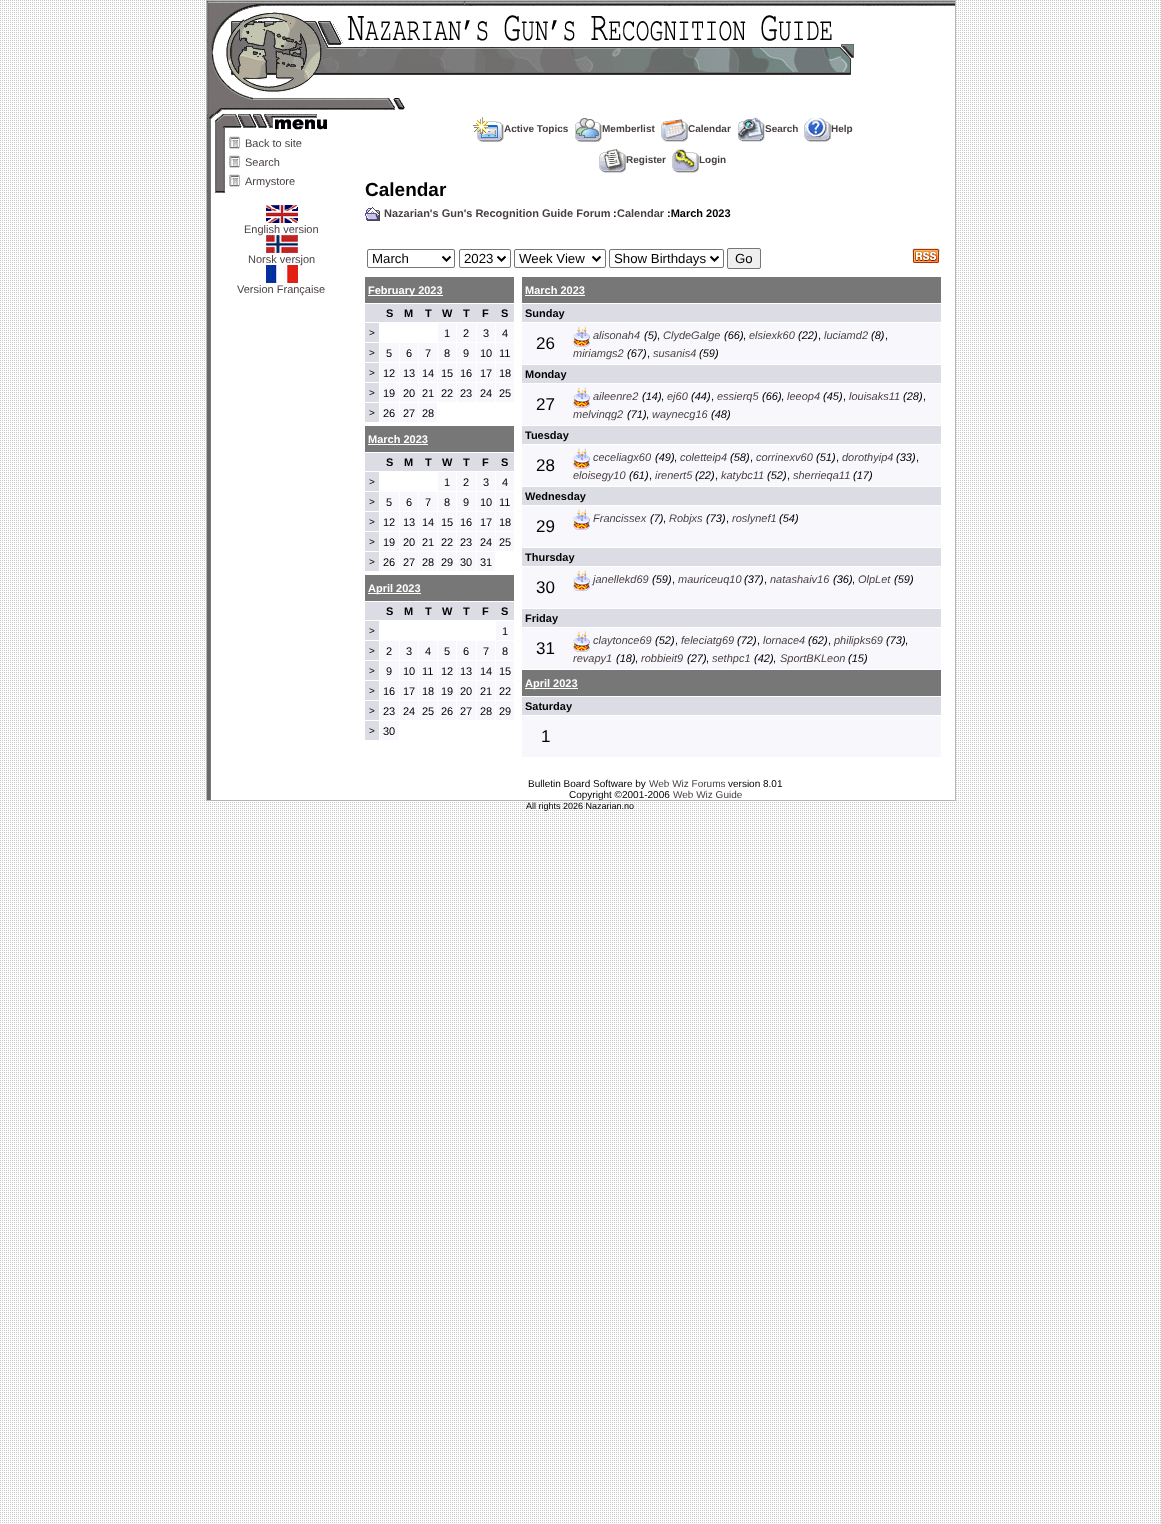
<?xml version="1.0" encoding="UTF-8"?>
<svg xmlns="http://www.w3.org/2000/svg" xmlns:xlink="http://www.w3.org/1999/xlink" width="1161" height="1524">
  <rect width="100%" height="100%" fill="#ffffff" />
  <image x="0" y="0" width="1161" height="1523" xlink:href="image1.png" />
  <image x="207" y="1" width="748" height="113" xlink:href="image2.png" />
  <rect x="206" width="750" height="1" fill="#b4b4b4" />
  <rect x="955" width="1" height="801" fill="#b4b4b4" />
  <rect x="206" width="1" height="114" fill="#b4b4b4" />
  <image x="207" y="114" width="748" height="686" xlink:href="image3.png" />
  <rect x="206" y="800" width="750" height="1" fill="#b4b4b4" />
  <rect x="206" y="114" width="1" height="687" fill="#b4b4b4" />
  <image x="215" y="132" width="10" height="58" xlink:href="image4.png" />
  <image x="207" y="114" width="120" height="18" xlink:href="image5.png" />
  <image x="223" y="133" width="18" height="16" xlink:href="image6.png" />
  <image x="223" y="155" width="18" height="16" xlink:href="image7.png" />
  <image x="223" y="171" width="18" height="16" xlink:href="image6.png" />
  <image x="207" y="190" width="18" height="5" xlink:href="image8.png" />
  <image x="266" y="205" width="32" height="18" xlink:href="image9.png" />
  <image x="473" y="117" width="31" height="25" xlink:href="image12.png" />
  <image x="575" y="118" width="27" height="24" xlink:href="image13.png" />
  <image x="661" y="119" width="27" height="23" xlink:href="image14.png" />
  <image x="738" y="117" width="27" height="25" xlink:href="image15.png" />
  <image x="804" y="118" width="27" height="24" xlink:href="image16.png" />
  <image x="599" y="149" width="27" height="24" xlink:href="image17.png" />
  <image x="672" y="149" width="27" height="24" xlink:href="image18.png" />
  <image x="365" y="207" width="15" height="14" xlink:href="image19.png" />
  <rect x="367.5" y="249.5" width="87" height="18" rx="1.5" fill="none" stroke="#767676" />
  <path d="M 442.5 256.5 l 4 4 l 4 -4" fill="none" stroke="#000000" stroke-width="2" />
  <rect x="459.5" y="249.5" width="51" height="18" rx="1.5" fill="none" stroke="#767676" />
  <path d="M 497.5 256.5 l 4 4 l 4 -4" fill="none" stroke="#000000" stroke-width="2" />
  <rect x="514.5" y="249.5" width="91" height="18" rx="1.5" fill="none" stroke="#767676" />
  <path d="M 592.5 256.5 l 4 4 l 4 -4" fill="none" stroke="#000000" stroke-width="2" />
  <rect x="609.5" y="249.5" width="114" height="18" rx="1.5" fill="none" stroke="#767676" />
  <path d="M 710.5 256.5 l 4 4 l 4 -4" fill="none" stroke="#000000" stroke-width="2" />
  <rect x="727.5" y="248.5" width="33" height="20" rx="1.5" fill="#efefef" stroke="#767676" />
  <image x="912" y="248" width="28" height="15" xlink:href="image20.png" />
  <rect x="365" y="277" width="149" height="26" fill="#777777" />
  <rect x="368" y="295" width="75" height="1" fill="#ffffff" />
  <rect x="365" y="304" width="149" height="18" fill="#dcdde4" />
  <rect x="365" y="323" width="14" height="19" fill="#dcdde4" />
  <rect x="438" y="323" width="18" height="19" fill="#f8f8fc" />
  <rect x="457" y="323" width="19" height="19" fill="#f8f8fc" />
  <rect x="477" y="323" width="18" height="19" fill="#f8f8fc" />
  <rect x="496" y="323" width="18" height="19" fill="#f8f8fc" />
  <rect x="365" y="343" width="14" height="19" fill="#dcdde4" />
  <rect x="380" y="343" width="19" height="19" fill="#f8f8fc" />
  <rect x="400" y="343" width="18" height="19" fill="#f8f8fc" />
  <rect x="419" y="343" width="18" height="19" fill="#f8f8fc" />
  <rect x="438" y="343" width="18" height="19" fill="#f8f8fc" />
  <rect x="457" y="343" width="19" height="19" fill="#f8f8fc" />
  <rect x="477" y="343" width="18" height="19" fill="#f8f8fc" />
  <rect x="496" y="343" width="18" height="19" fill="#f8f8fc" />
  <rect x="365" y="363" width="14" height="19" fill="#dcdde4" />
  <rect x="380" y="363" width="19" height="19" fill="#f8f8fc" />
  <rect x="400" y="363" width="18" height="19" fill="#f8f8fc" />
  <rect x="419" y="363" width="18" height="19" fill="#f8f8fc" />
  <rect x="438" y="363" width="18" height="19" fill="#f8f8fc" />
  <rect x="457" y="363" width="19" height="19" fill="#f8f8fc" />
  <rect x="477" y="363" width="18" height="19" fill="#f8f8fc" />
  <rect x="496" y="363" width="18" height="19" fill="#f8f8fc" />
  <rect x="365" y="383" width="14" height="19" fill="#dcdde4" />
  <rect x="380" y="383" width="19" height="19" fill="#f8f8fc" />
  <rect x="400" y="383" width="18" height="19" fill="#f8f8fc" />
  <rect x="419" y="383" width="18" height="19" fill="#f8f8fc" />
  <rect x="438" y="383" width="18" height="19" fill="#f8f8fc" />
  <rect x="457" y="383" width="19" height="19" fill="#f8f8fc" />
  <rect x="477" y="383" width="18" height="19" fill="#f8f8fc" />
  <rect x="496" y="383" width="18" height="19" fill="#f8f8fc" />
  <rect x="365" y="403" width="14" height="19" fill="#dcdde4" />
  <rect x="380" y="403" width="19" height="19" fill="#f8f8fc" />
  <rect x="400" y="403" width="18" height="19" fill="#f8f8fc" />
  <rect x="419" y="403" width="18" height="19" fill="#f8f8fc" />
  <rect x="522" y="277" width="419" height="26" fill="#777777" />
  <rect x="525" y="295" width="60" height="1" fill="#ffffff" />
  <rect x="522" y="304" width="419" height="18" fill="#dcdde4" />
  <rect x="522" y="323" width="419" height="41" fill="#f8f8fc" />
  <image x="573" y="326" width="17" height="21" xlink:href="image21.png" />
  <rect x="522" y="365" width="419" height="18" fill="#dcdde4" />
  <rect x="522" y="384" width="419" height="41" fill="#f8f8fc" />
  <image x="573" y="387" width="17" height="21" xlink:href="image21.png" />
  <rect x="522" y="426" width="419" height="18" fill="#dcdde4" />
  <rect x="522" y="445" width="419" height="41" fill="#f8f8fc" />
  <image x="573" y="448" width="17" height="21" xlink:href="image21.png" />
  <rect x="522" y="487" width="419" height="18" fill="#dcdde4" />
  <rect x="522" y="506" width="419" height="41" fill="#f8f8fc" />
  <image x="573" y="509" width="17" height="21" xlink:href="image21.png" />
  <rect x="522" y="548" width="419" height="18" fill="#dcdde4" />
  <rect x="522" y="567" width="419" height="41" fill="#f8f8fc" />
  <image x="573" y="570" width="17" height="21" xlink:href="image21.png" />
  <rect x="522" y="609" width="419" height="18" fill="#dcdde4" />
  <rect x="522" y="628" width="419" height="41" fill="#f8f8fc" />
  <image x="573" y="631" width="17" height="21" xlink:href="image21.png" />
  <rect x="522" y="670" width="419" height="26" fill="#777777" />
  <rect x="525" y="688" width="53" height="1" fill="#ffffff" />
  <rect x="522" y="697" width="419" height="18" fill="#dcdde4" />
  <rect x="522" y="716" width="419" height="41" fill="#f8f8fc" />
  <rect x="365" y="426" width="149" height="26" fill="#777777" />
  <rect x="368" y="444" width="60" height="1" fill="#ffffff" />
  <rect x="365" y="453" width="149" height="18" fill="#dcdde4" />
  <rect x="365" y="472" width="14" height="19" fill="#dcdde4" />
  <rect x="438" y="472" width="18" height="19" fill="#f8f8fc" />
  <rect x="457" y="472" width="19" height="19" fill="#f8f8fc" />
  <rect x="477" y="472" width="18" height="19" fill="#f8f8fc" />
  <rect x="496" y="472" width="18" height="19" fill="#f8f8fc" />
  <rect x="365" y="492" width="14" height="19" fill="#dcdde4" />
  <rect x="380" y="492" width="19" height="19" fill="#f8f8fc" />
  <rect x="400" y="492" width="18" height="19" fill="#f8f8fc" />
  <rect x="419" y="492" width="18" height="19" fill="#f8f8fc" />
  <rect x="438" y="492" width="18" height="19" fill="#f8f8fc" />
  <rect x="457" y="492" width="19" height="19" fill="#f8f8fc" />
  <rect x="477" y="492" width="18" height="19" fill="#f8f8fc" />
  <rect x="496" y="492" width="18" height="19" fill="#f8f8fc" />
  <rect x="365" y="512" width="14" height="19" fill="#dcdde4" />
  <rect x="380" y="512" width="19" height="19" fill="#f8f8fc" />
  <rect x="400" y="512" width="18" height="19" fill="#f8f8fc" />
  <rect x="419" y="512" width="18" height="19" fill="#f8f8fc" />
  <rect x="438" y="512" width="18" height="19" fill="#f8f8fc" />
  <rect x="457" y="512" width="19" height="19" fill="#f8f8fc" />
  <rect x="477" y="512" width="18" height="19" fill="#f8f8fc" />
  <rect x="496" y="512" width="18" height="19" fill="#f8f8fc" />
  <rect x="365" y="532" width="14" height="19" fill="#dcdde4" />
  <rect x="380" y="532" width="19" height="19" fill="#f8f8fc" />
  <rect x="400" y="532" width="18" height="19" fill="#f8f8fc" />
  <rect x="419" y="532" width="18" height="19" fill="#f8f8fc" />
  <rect x="438" y="532" width="18" height="19" fill="#f8f8fc" />
  <rect x="457" y="532" width="19" height="19" fill="#f8f8fc" />
  <rect x="477" y="532" width="18" height="19" fill="#f8f8fc" />
  <rect x="496" y="532" width="18" height="19" fill="#f8f8fc" />
  <rect x="365" y="552" width="14" height="19" fill="#dcdde4" />
  <rect x="380" y="552" width="19" height="19" fill="#f8f8fc" />
  <rect x="400" y="552" width="18" height="19" fill="#f8f8fc" />
  <rect x="419" y="552" width="18" height="19" fill="#f8f8fc" />
  <rect x="438" y="552" width="18" height="19" fill="#f8f8fc" />
  <rect x="457" y="552" width="19" height="19" fill="#f8f8fc" />
  <rect x="477" y="552" width="18" height="19" fill="#f8f8fc" />
  <rect x="365" y="575" width="149" height="26" fill="#777777" />
  <rect x="368" y="593" width="53" height="1" fill="#ffffff" />
  <rect x="365" y="602" width="149" height="18" fill="#dcdde4" />
  <rect x="365" y="621" width="14" height="19" fill="#dcdde4" />
  <rect x="496" y="621" width="18" height="19" fill="#f8f8fc" />
  <rect x="365" y="641" width="14" height="19" fill="#dcdde4" />
  <rect x="380" y="641" width="19" height="19" fill="#f8f8fc" />
  <rect x="400" y="641" width="18" height="19" fill="#f8f8fc" />
  <rect x="419" y="641" width="18" height="19" fill="#f8f8fc" />
  <rect x="438" y="641" width="18" height="19" fill="#f8f8fc" />
  <rect x="457" y="641" width="19" height="19" fill="#f8f8fc" />
  <rect x="477" y="641" width="18" height="19" fill="#f8f8fc" />
  <rect x="496" y="641" width="18" height="19" fill="#f8f8fc" />
  <rect x="365" y="661" width="14" height="19" fill="#dcdde4" />
  <rect x="380" y="661" width="19" height="19" fill="#f8f8fc" />
  <rect x="400" y="661" width="18" height="19" fill="#f8f8fc" />
  <rect x="419" y="661" width="18" height="19" fill="#f8f8fc" />
  <rect x="438" y="661" width="18" height="19" fill="#f8f8fc" />
  <rect x="457" y="661" width="19" height="19" fill="#f8f8fc" />
  <rect x="477" y="661" width="18" height="19" fill="#f8f8fc" />
  <rect x="496" y="661" width="18" height="19" fill="#f8f8fc" />
  <rect x="365" y="681" width="14" height="19" fill="#dcdde4" />
  <rect x="380" y="681" width="19" height="19" fill="#f8f8fc" />
  <rect x="400" y="681" width="18" height="19" fill="#f8f8fc" />
  <rect x="419" y="681" width="18" height="19" fill="#f8f8fc" />
  <rect x="438" y="681" width="18" height="19" fill="#f8f8fc" />
  <rect x="457" y="681" width="19" height="19" fill="#f8f8fc" />
  <rect x="477" y="681" width="18" height="19" fill="#f8f8fc" />
  <rect x="496" y="681" width="18" height="19" fill="#f8f8fc" />
  <rect x="365" y="701" width="14" height="19" fill="#dcdde4" />
  <rect x="380" y="701" width="19" height="19" fill="#f8f8fc" />
  <rect x="400" y="701" width="18" height="19" fill="#f8f8fc" />
  <rect x="419" y="701" width="18" height="19" fill="#f8f8fc" />
  <rect x="438" y="701" width="18" height="19" fill="#f8f8fc" />
  <rect x="457" y="701" width="19" height="19" fill="#f8f8fc" />
  <rect x="477" y="701" width="18" height="19" fill="#f8f8fc" />
  <rect x="496" y="701" width="18" height="19" fill="#f8f8fc" />
  <rect x="365" y="721" width="14" height="19" fill="#dcdde4" />
  <rect x="380" y="721" width="19" height="19" fill="#f8f8fc" />
  <text x="245" y="147" style="font-family: Liberation Sans; font-size: 11px; fill: #483f40">Back to site</text>
  <text x="245" y="166" style="font-family: Liberation Sans; font-size: 11px; fill: #483f40">Search</text>
  <text x="245" y="185" style="font-family: Liberation Sans; font-size: 11px; fill: #483f40">Armystore</text>
  <text x="244" y="233" style="font-family: Liberation Sans; font-size: 11px; fill: #483f40">English version</text>
  <image x="266" y="235" width="32" height="18" xlink:href="image10.png" />
  <text x="248" y="263" style="font-family: Liberation Sans; font-size: 11px; fill: #483f40">Norsk versjon</text>
  <image x="266" y="265" width="32" height="18" xlink:href="image11.png" />
  <text x="237" y="293" style="font-family: Liberation Sans; font-size: 11px; fill: #483f40">Version Française</text>
  <text x="504" y="132" style="font-family: Liberation Sans; font-size: 10px; font-weight: bold; fill: #483f40">Active Topics</text>
  <text x="602" y="132" style="font-family: Liberation Sans; font-size: 10px; font-weight: bold; fill: #483f40">Memberlist</text>
  <text x="688" y="132" style="font-family: Liberation Sans; font-size: 10px; font-weight: bold; fill: #483f40">Calendar</text>
  <text x="765" y="132" style="font-family: Liberation Sans; font-size: 10px; font-weight: bold; fill: #483f40">Search</text>
  <text x="831" y="132" style="font-family: Liberation Sans; font-size: 10px; font-weight: bold; fill: #483f40">Help</text>
  <text x="626" y="163" style="font-family: Liberation Sans; font-size: 10px; font-weight: bold; fill: #483f40">Register</text>
  <text x="699" y="163" style="font-family: Liberation Sans; font-size: 10px; font-weight: bold; fill: #483f40">Login</text>
  <text x="365" y="196" style="font-family: Liberation Sans; font-size: 19px; font-weight: bold; fill: #000000">Calendar</text>
  <text x="384" y="217" style="font-family: Liberation Sans; font-size: 11px; font-weight: bold; fill: #483f40">Nazarian's Gun's Recognition Guide Forum</text>
  <text x="613" y="217" style="font-family: Liberation Sans; font-size: 11px; font-weight: bold; fill: #000000">:</text>
  <text x="617" y="217" style="font-family: Liberation Sans; font-size: 11px; font-weight: bold; fill: #483f40">Calendar</text>
  <text x="667" y="217" style="font-family: Liberation Sans; font-size: 11px; font-weight: bold; fill: #000000">:March 2023</text>
  <text x="372" y="263" style="font-family: Liberation Sans; font-size: 13.25px; fill: #000000">March</text>
  <text x="464" y="263" style="font-family: Liberation Sans; font-size: 13.25px; fill: #000000">2023</text>
  <text x="519" y="263" style="font-family: Liberation Sans; font-size: 13.25px; fill: #000000">Week View</text>
  <text x="614" y="263" style="font-family: Liberation Sans; font-size: 13.25px; fill: #000000">Show Birthdays</text>
  <text x="735" y="263" style="font-family: Liberation Sans; font-size: 13.25px; fill: #000000">Go</text>
  <text x="368" y="294" style="font-family: Liberation Sans; font-size: 11px; font-weight: bold; fill: #ffffff">February 2023</text>
  <text x="386" y="317" style="font-family: Liberation Sans; font-size: 11px; font-weight: bold; fill: #000000">S</text>
  <text x="404" y="317" style="font-family: Liberation Sans; font-size: 11px; font-weight: bold; fill: #000000">M</text>
  <text x="425" y="317" style="font-family: Liberation Sans; font-size: 11px; font-weight: bold; fill: #000000">T</text>
  <text x="442" y="317" style="font-family: Liberation Sans; font-size: 11px; font-weight: bold; fill: #000000">W</text>
  <text x="463" y="317" style="font-family: Liberation Sans; font-size: 11px; font-weight: bold; fill: #000000">T</text>
  <text x="482" y="317" style="font-family: Liberation Sans; font-size: 11px; font-weight: bold; fill: #000000">F</text>
  <text x="501" y="317" style="font-family: Liberation Sans; font-size: 11px; font-weight: bold; fill: #000000">S</text>
  <text x="369" y="336" style="font-family: Liberation Sans; font-size: 10px; fill: #000000">&gt;</text>
  <text x="444" y="337" style="font-family: Liberation Sans; font-size: 11px; fill: #000000">1</text>
  <text x="463" y="337" style="font-family: Liberation Sans; font-size: 11px; fill: #000000">2</text>
  <text x="483" y="337" style="font-family: Liberation Sans; font-size: 11px; fill: #000000">3</text>
  <text x="502" y="337" style="font-family: Liberation Sans; font-size: 11px; fill: #000000">4</text>
  <text x="369" y="356" style="font-family: Liberation Sans; font-size: 10px; fill: #000000">&gt;</text>
  <text x="386" y="357" style="font-family: Liberation Sans; font-size: 11px; fill: #000000">5</text>
  <text x="406" y="357" style="font-family: Liberation Sans; font-size: 11px; fill: #000000">6</text>
  <text x="425" y="357" style="font-family: Liberation Sans; font-size: 11px; fill: #000000">7</text>
  <text x="444" y="357" style="font-family: Liberation Sans; font-size: 11px; fill: #000000">8</text>
  <text x="463" y="357" style="font-family: Liberation Sans; font-size: 11px; fill: #000000">9</text>
  <text x="480" y="357" style="font-family: Liberation Sans; font-size: 11px; fill: #000000">10</text>
  <text x="499" y="357" style="font-family: Liberation Sans; font-size: 11px; fill: #000000">11</text>
  <text x="369" y="376" style="font-family: Liberation Sans; font-size: 10px; fill: #000000">&gt;</text>
  <text x="383" y="377" style="font-family: Liberation Sans; font-size: 11px; fill: #000000">12</text>
  <text x="403" y="377" style="font-family: Liberation Sans; font-size: 11px; fill: #000000">13</text>
  <text x="422" y="377" style="font-family: Liberation Sans; font-size: 11px; fill: #000000">14</text>
  <text x="441" y="377" style="font-family: Liberation Sans; font-size: 11px; fill: #000000">15</text>
  <text x="460" y="377" style="font-family: Liberation Sans; font-size: 11px; fill: #000000">16</text>
  <text x="480" y="377" style="font-family: Liberation Sans; font-size: 11px; fill: #000000">17</text>
  <text x="499" y="377" style="font-family: Liberation Sans; font-size: 11px; fill: #000000">18</text>
  <text x="369" y="396" style="font-family: Liberation Sans; font-size: 10px; fill: #000000">&gt;</text>
  <text x="383" y="397" style="font-family: Liberation Sans; font-size: 11px; fill: #000000">19</text>
  <text x="403" y="397" style="font-family: Liberation Sans; font-size: 11px; fill: #000000">20</text>
  <text x="422" y="397" style="font-family: Liberation Sans; font-size: 11px; fill: #000000">21</text>
  <text x="441" y="397" style="font-family: Liberation Sans; font-size: 11px; fill: #000000">22</text>
  <text x="460" y="397" style="font-family: Liberation Sans; font-size: 11px; fill: #000000">23</text>
  <text x="480" y="397" style="font-family: Liberation Sans; font-size: 11px; fill: #000000">24</text>
  <text x="499" y="397" style="font-family: Liberation Sans; font-size: 11px; fill: #000000">25</text>
  <text x="369" y="416" style="font-family: Liberation Sans; font-size: 10px; fill: #000000">&gt;</text>
  <text x="383" y="417" style="font-family: Liberation Sans; font-size: 11px; fill: #000000">26</text>
  <text x="403" y="417" style="font-family: Liberation Sans; font-size: 11px; fill: #000000">27</text>
  <text x="422" y="417" style="font-family: Liberation Sans; font-size: 11px; fill: #000000">28</text>
  <text x="525" y="294" style="font-family: Liberation Sans; font-size: 11px; font-weight: bold; fill: #ffffff">March 2023</text>
  <text x="525" y="317" style="font-family: Liberation Sans; font-size: 11px; font-weight: bold; fill: #000000">Sunday</text>
  <text x="536" y="349" style="font-family: Liberation Sans; font-size: 17px; fill: #000000">26</text>
  <text x="593" y="339" style="font-family: Liberation Sans; font-size: 11px; font-style: italic; fill: #483f40">alisonah4</text>
  <text x="644" y="339" style="font-family: Liberation Sans; font-size: 11px; font-style: italic; fill: #000000">(5)</text>
  <text x="657" y="339" style="font-family: Liberation Sans; font-size: 11px; fill: #000000">,</text>
  <text x="663" y="339" style="font-family: Liberation Sans; font-size: 11px; font-style: italic; fill: #483f40">ClydeGalge</text>
  <text x="724" y="339" style="font-family: Liberation Sans; font-size: 11px; font-style: italic; fill: #000000">(66)</text>
  <text x="743" y="339" style="font-family: Liberation Sans; font-size: 11px; fill: #000000">,</text>
  <text x="749" y="339" style="font-family: Liberation Sans; font-size: 11px; font-style: italic; fill: #483f40">elsiexk60</text>
  <text x="798" y="339" style="font-family: Liberation Sans; font-size: 11px; font-style: italic; fill: #000000">(22)</text>
  <text x="818" y="339" style="font-family: Liberation Sans; font-size: 11px; fill: #000000">,</text>
  <text x="824" y="339" style="font-family: Liberation Sans; font-size: 11px; font-style: italic; fill: #483f40">luciamd2</text>
  <text x="871" y="339" style="font-family: Liberation Sans; font-size: 11px; font-style: italic; fill: #000000">(8)</text>
  <text x="885" y="339" style="font-family: Liberation Sans; font-size: 11px; fill: #000000">,</text>
  <text x="573" y="357" style="font-family: Liberation Sans; font-size: 11px; font-style: italic; fill: #483f40">miriamgs2</text>
  <text x="627" y="357" style="font-family: Liberation Sans; font-size: 11px; font-style: italic; fill: #000000">(67)</text>
  <text x="647" y="357" style="font-family: Liberation Sans; font-size: 11px; fill: #000000">,</text>
  <text x="653" y="357" style="font-family: Liberation Sans; font-size: 11px; font-style: italic; fill: #483f40">susanis4</text>
  <text x="699" y="357" style="font-family: Liberation Sans; font-size: 11px; font-style: italic; fill: #000000">(59)</text>
  <text x="525" y="378" style="font-family: Liberation Sans; font-size: 11px; font-weight: bold; fill: #000000">Monday</text>
  <text x="536" y="410" style="font-family: Liberation Sans; font-size: 17px; fill: #000000">27</text>
  <text x="593" y="400" style="font-family: Liberation Sans; font-size: 11px; font-style: italic; fill: #483f40">aileenre2</text>
  <text x="642" y="400" style="font-family: Liberation Sans; font-size: 11px; font-style: italic; fill: #000000">(14)</text>
  <text x="661" y="400" style="font-family: Liberation Sans; font-size: 11px; fill: #000000">,</text>
  <text x="667" y="400" style="font-family: Liberation Sans; font-size: 11px; font-style: italic; fill: #483f40">ej60</text>
  <text x="691" y="400" style="font-family: Liberation Sans; font-size: 11px; font-style: italic; fill: #000000">(44)</text>
  <text x="711" y="400" style="font-family: Liberation Sans; font-size: 11px; fill: #000000">,</text>
  <text x="717" y="400" style="font-family: Liberation Sans; font-size: 11px; font-style: italic; fill: #483f40">essierq5</text>
  <text x="762" y="400" style="font-family: Liberation Sans; font-size: 11px; font-style: italic; fill: #000000">(66)</text>
  <text x="781" y="400" style="font-family: Liberation Sans; font-size: 11px; fill: #000000">,</text>
  <text x="787" y="400" style="font-family: Liberation Sans; font-size: 11px; font-style: italic; fill: #483f40">leeop4</text>
  <text x="823" y="400" style="font-family: Liberation Sans; font-size: 11px; font-style: italic; fill: #000000">(45)</text>
  <text x="843" y="400" style="font-family: Liberation Sans; font-size: 11px; fill: #000000">,</text>
  <text x="849" y="400" style="font-family: Liberation Sans; font-size: 11px; font-style: italic; fill: #483f40">louisaks11</text>
  <text x="903" y="400" style="font-family: Liberation Sans; font-size: 11px; font-style: italic; fill: #000000">(28)</text>
  <text x="923" y="400" style="font-family: Liberation Sans; font-size: 11px; fill: #000000">,</text>
  <text x="573" y="418" style="font-family: Liberation Sans; font-size: 11px; font-style: italic; fill: #483f40">melvinqg2</text>
  <text x="627" y="418" style="font-family: Liberation Sans; font-size: 11px; font-style: italic; fill: #000000">(71)</text>
  <text x="646" y="418" style="font-family: Liberation Sans; font-size: 11px; fill: #000000">,</text>
  <text x="652" y="418" style="font-family: Liberation Sans; font-size: 11px; font-style: italic; fill: #483f40">waynecg16</text>
  <text x="711" y="418" style="font-family: Liberation Sans; font-size: 11px; font-style: italic; fill: #000000">(48)</text>
  <text x="525" y="439" style="font-family: Liberation Sans; font-size: 11px; font-weight: bold; fill: #000000">Tuesday</text>
  <text x="536" y="471" style="font-family: Liberation Sans; font-size: 17px; fill: #000000">28</text>
  <text x="593" y="461" style="font-family: Liberation Sans; font-size: 11px; font-style: italic; fill: #483f40">ceceliagx60</text>
  <text x="655" y="461" style="font-family: Liberation Sans; font-size: 11px; font-style: italic; fill: #000000">(49)</text>
  <text x="674" y="461" style="font-family: Liberation Sans; font-size: 11px; fill: #000000">,</text>
  <text x="680" y="461" style="font-family: Liberation Sans; font-size: 11px; font-style: italic; fill: #483f40">coletteip4</text>
  <text x="730" y="461" style="font-family: Liberation Sans; font-size: 11px; font-style: italic; fill: #000000">(58)</text>
  <text x="750" y="461" style="font-family: Liberation Sans; font-size: 11px; fill: #000000">,</text>
  <text x="756" y="461" style="font-family: Liberation Sans; font-size: 11px; font-style: italic; fill: #483f40">corrinexv60</text>
  <text x="816" y="461" style="font-family: Liberation Sans; font-size: 11px; font-style: italic; fill: #000000">(51)</text>
  <text x="836" y="461" style="font-family: Liberation Sans; font-size: 11px; fill: #000000">,</text>
  <text x="842" y="461" style="font-family: Liberation Sans; font-size: 11px; font-style: italic; fill: #483f40">dorothyip4</text>
  <text x="896" y="461" style="font-family: Liberation Sans; font-size: 11px; font-style: italic; fill: #000000">(33)</text>
  <text x="916" y="461" style="font-family: Liberation Sans; font-size: 11px; fill: #000000">,</text>
  <text x="573" y="479" style="font-family: Liberation Sans; font-size: 11px; font-style: italic; fill: #483f40">eloisegy10</text>
  <text x="629" y="479" style="font-family: Liberation Sans; font-size: 11px; font-style: italic; fill: #000000">(61)</text>
  <text x="649" y="479" style="font-family: Liberation Sans; font-size: 11px; fill: #000000">,</text>
  <text x="655" y="479" style="font-family: Liberation Sans; font-size: 11px; font-style: italic; fill: #483f40">irenert5</text>
  <text x="695" y="479" style="font-family: Liberation Sans; font-size: 11px; font-style: italic; fill: #000000">(22)</text>
  <text x="715" y="479" style="font-family: Liberation Sans; font-size: 11px; fill: #000000">,</text>
  <text x="721" y="479" style="font-family: Liberation Sans; font-size: 11px; font-style: italic; fill: #483f40">katybc11</text>
  <text x="767" y="479" style="font-family: Liberation Sans; font-size: 11px; font-style: italic; fill: #000000">(52)</text>
  <text x="787" y="479" style="font-family: Liberation Sans; font-size: 11px; fill: #000000">,</text>
  <text x="793" y="479" style="font-family: Liberation Sans; font-size: 11px; font-style: italic; fill: #483f40">sherrieqa11</text>
  <text x="853" y="479" style="font-family: Liberation Sans; font-size: 11px; font-style: italic; fill: #000000">(17)</text>
  <text x="525" y="500" style="font-family: Liberation Sans; font-size: 11px; font-weight: bold; fill: #000000">Wednesday</text>
  <text x="536" y="532" style="font-family: Liberation Sans; font-size: 17px; fill: #000000">29</text>
  <text x="593" y="522" style="font-family: Liberation Sans; font-size: 11px; font-style: italic; fill: #483f40">Francissex</text>
  <text x="650" y="522" style="font-family: Liberation Sans; font-size: 11px; font-style: italic; fill: #000000">(7)</text>
  <text x="663" y="522" style="font-family: Liberation Sans; font-size: 11px; fill: #000000">,</text>
  <text x="669" y="522" style="font-family: Liberation Sans; font-size: 11px; font-style: italic; fill: #483f40">Robjxs</text>
  <text x="706" y="522" style="font-family: Liberation Sans; font-size: 11px; font-style: italic; fill: #000000">(73)</text>
  <text x="726" y="522" style="font-family: Liberation Sans; font-size: 11px; fill: #000000">,</text>
  <text x="732" y="522" style="font-family: Liberation Sans; font-size: 11px; font-style: italic; fill: #483f40">roslynef1</text>
  <text x="779" y="522" style="font-family: Liberation Sans; font-size: 11px; font-style: italic; fill: #000000">(54)</text>
  <text x="525" y="561" style="font-family: Liberation Sans; font-size: 11px; font-weight: bold; fill: #000000">Thursday</text>
  <text x="536" y="593" style="font-family: Liberation Sans; font-size: 17px; fill: #000000">30</text>
  <text x="593" y="583" style="font-family: Liberation Sans; font-size: 11px; font-style: italic; fill: #483f40">janellekd69</text>
  <text x="652" y="583" style="font-family: Liberation Sans; font-size: 11px; font-style: italic; fill: #000000">(59)</text>
  <text x="672" y="583" style="font-family: Liberation Sans; font-size: 11px; fill: #000000">,</text>
  <text x="678" y="583" style="font-family: Liberation Sans; font-size: 11px; font-style: italic; fill: #483f40">mauriceuq10</text>
  <text x="744" y="583" style="font-family: Liberation Sans; font-size: 11px; font-style: italic; fill: #000000">(37)</text>
  <text x="764" y="583" style="font-family: Liberation Sans; font-size: 11px; fill: #000000">,</text>
  <text x="770" y="583" style="font-family: Liberation Sans; font-size: 11px; font-style: italic; fill: #483f40">natashaiv16</text>
  <text x="833" y="583" style="font-family: Liberation Sans; font-size: 11px; font-style: italic; fill: #000000">(36)</text>
  <text x="852" y="583" style="font-family: Liberation Sans; font-size: 11px; fill: #000000">,</text>
  <text x="858" y="583" style="font-family: Liberation Sans; font-size: 11px; font-style: italic; fill: #483f40">OlpLet</text>
  <text x="894" y="583" style="font-family: Liberation Sans; font-size: 11px; font-style: italic; fill: #000000">(59)</text>
  <text x="525" y="622" style="font-family: Liberation Sans; font-size: 11px; font-weight: bold; fill: #000000">Friday</text>
  <text x="536" y="654" style="font-family: Liberation Sans; font-size: 17px; fill: #000000">31</text>
  <text x="593" y="644" style="font-family: Liberation Sans; font-size: 11px; font-style: italic; fill: #483f40">claytonce69</text>
  <text x="655" y="644" style="font-family: Liberation Sans; font-size: 11px; font-style: italic; fill: #000000">(52)</text>
  <text x="675" y="644" style="font-family: Liberation Sans; font-size: 11px; fill: #000000">,</text>
  <text x="681" y="644" style="font-family: Liberation Sans; font-size: 11px; font-style: italic; fill: #483f40">feleciatg69</text>
  <text x="737" y="644" style="font-family: Liberation Sans; font-size: 11px; font-style: italic; fill: #000000">(72)</text>
  <text x="757" y="644" style="font-family: Liberation Sans; font-size: 11px; fill: #000000">,</text>
  <text x="763" y="644" style="font-family: Liberation Sans; font-size: 11px; font-style: italic; fill: #483f40">lornace4</text>
  <text x="808" y="644" style="font-family: Liberation Sans; font-size: 11px; font-style: italic; fill: #000000">(62)</text>
  <text x="828" y="644" style="font-family: Liberation Sans; font-size: 11px; fill: #000000">,</text>
  <text x="834" y="644" style="font-family: Liberation Sans; font-size: 11px; font-style: italic; fill: #483f40">philipks69</text>
  <text x="886" y="644" style="font-family: Liberation Sans; font-size: 11px; font-style: italic; fill: #000000">(73)</text>
  <text x="905" y="644" style="font-family: Liberation Sans; font-size: 11px; fill: #000000">,</text>
  <text x="573" y="662" style="font-family: Liberation Sans; font-size: 11px; font-style: italic; fill: #483f40">revapy1</text>
  <text x="616" y="662" style="font-family: Liberation Sans; font-size: 11px; font-style: italic; fill: #000000">(18)</text>
  <text x="635" y="662" style="font-family: Liberation Sans; font-size: 11px; fill: #000000">,</text>
  <text x="641" y="662" style="font-family: Liberation Sans; font-size: 11px; font-style: italic; fill: #483f40">robbieit9</text>
  <text x="687" y="662" style="font-family: Liberation Sans; font-size: 11px; font-style: italic; fill: #000000">(27)</text>
  <text x="706" y="662" style="font-family: Liberation Sans; font-size: 11px; fill: #000000">,</text>
  <text x="712" y="662" style="font-family: Liberation Sans; font-size: 11px; font-style: italic; fill: #483f40">sethpc1</text>
  <text x="754" y="662" style="font-family: Liberation Sans; font-size: 11px; font-style: italic; fill: #000000">(42)</text>
  <text x="773" y="662" style="font-family: Liberation Sans; font-size: 11px; fill: #000000">,</text>
  <text x="780" y="662" style="font-family: Liberation Sans; font-size: 11px; font-style: italic; fill: #483f40">SportBKLeon</text>
  <text x="848" y="662" style="font-family: Liberation Sans; font-size: 11px; font-style: italic; fill: #000000">(15)</text>
  <text x="525" y="687" style="font-family: Liberation Sans; font-size: 11px; font-weight: bold; fill: #ffffff">April 2023</text>
  <text x="525" y="710" style="font-family: Liberation Sans; font-size: 11px; font-weight: bold; fill: #000000">Saturday</text>
  <text x="541" y="742" style="font-family: Liberation Sans; font-size: 17px; fill: #000000">1</text>
  <text x="368" y="443" style="font-family: Liberation Sans; font-size: 11px; font-weight: bold; fill: #ffffff">March 2023</text>
  <text x="386" y="466" style="font-family: Liberation Sans; font-size: 11px; font-weight: bold; fill: #000000">S</text>
  <text x="404" y="466" style="font-family: Liberation Sans; font-size: 11px; font-weight: bold; fill: #000000">M</text>
  <text x="425" y="466" style="font-family: Liberation Sans; font-size: 11px; font-weight: bold; fill: #000000">T</text>
  <text x="442" y="466" style="font-family: Liberation Sans; font-size: 11px; font-weight: bold; fill: #000000">W</text>
  <text x="463" y="466" style="font-family: Liberation Sans; font-size: 11px; font-weight: bold; fill: #000000">T</text>
  <text x="482" y="466" style="font-family: Liberation Sans; font-size: 11px; font-weight: bold; fill: #000000">F</text>
  <text x="501" y="466" style="font-family: Liberation Sans; font-size: 11px; font-weight: bold; fill: #000000">S</text>
  <text x="369" y="485" style="font-family: Liberation Sans; font-size: 10px; fill: #000000">&gt;</text>
  <text x="444" y="486" style="font-family: Liberation Sans; font-size: 11px; fill: #000000">1</text>
  <text x="463" y="486" style="font-family: Liberation Sans; font-size: 11px; fill: #000000">2</text>
  <text x="483" y="486" style="font-family: Liberation Sans; font-size: 11px; fill: #000000">3</text>
  <text x="502" y="486" style="font-family: Liberation Sans; font-size: 11px; fill: #000000">4</text>
  <text x="369" y="505" style="font-family: Liberation Sans; font-size: 10px; fill: #000000">&gt;</text>
  <text x="386" y="506" style="font-family: Liberation Sans; font-size: 11px; fill: #000000">5</text>
  <text x="406" y="506" style="font-family: Liberation Sans; font-size: 11px; fill: #000000">6</text>
  <text x="425" y="506" style="font-family: Liberation Sans; font-size: 11px; fill: #000000">7</text>
  <text x="444" y="506" style="font-family: Liberation Sans; font-size: 11px; fill: #000000">8</text>
  <text x="463" y="506" style="font-family: Liberation Sans; font-size: 11px; fill: #000000">9</text>
  <text x="480" y="506" style="font-family: Liberation Sans; font-size: 11px; fill: #000000">10</text>
  <text x="499" y="506" style="font-family: Liberation Sans; font-size: 11px; fill: #000000">11</text>
  <text x="369" y="525" style="font-family: Liberation Sans; font-size: 10px; fill: #000000">&gt;</text>
  <text x="383" y="526" style="font-family: Liberation Sans; font-size: 11px; fill: #000000">12</text>
  <text x="403" y="526" style="font-family: Liberation Sans; font-size: 11px; fill: #000000">13</text>
  <text x="422" y="526" style="font-family: Liberation Sans; font-size: 11px; fill: #000000">14</text>
  <text x="441" y="526" style="font-family: Liberation Sans; font-size: 11px; fill: #000000">15</text>
  <text x="460" y="526" style="font-family: Liberation Sans; font-size: 11px; fill: #000000">16</text>
  <text x="480" y="526" style="font-family: Liberation Sans; font-size: 11px; fill: #000000">17</text>
  <text x="499" y="526" style="font-family: Liberation Sans; font-size: 11px; fill: #000000">18</text>
  <text x="369" y="545" style="font-family: Liberation Sans; font-size: 10px; fill: #000000">&gt;</text>
  <text x="383" y="546" style="font-family: Liberation Sans; font-size: 11px; fill: #000000">19</text>
  <text x="403" y="546" style="font-family: Liberation Sans; font-size: 11px; fill: #000000">20</text>
  <text x="422" y="546" style="font-family: Liberation Sans; font-size: 11px; fill: #000000">21</text>
  <text x="441" y="546" style="font-family: Liberation Sans; font-size: 11px; fill: #000000">22</text>
  <text x="460" y="546" style="font-family: Liberation Sans; font-size: 11px; fill: #000000">23</text>
  <text x="480" y="546" style="font-family: Liberation Sans; font-size: 11px; fill: #000000">24</text>
  <text x="499" y="546" style="font-family: Liberation Sans; font-size: 11px; fill: #000000">25</text>
  <text x="369" y="565" style="font-family: Liberation Sans; font-size: 10px; fill: #000000">&gt;</text>
  <text x="383" y="566" style="font-family: Liberation Sans; font-size: 11px; fill: #000000">26</text>
  <text x="403" y="566" style="font-family: Liberation Sans; font-size: 11px; fill: #000000">27</text>
  <text x="422" y="566" style="font-family: Liberation Sans; font-size: 11px; fill: #000000">28</text>
  <text x="441" y="566" style="font-family: Liberation Sans; font-size: 11px; fill: #000000">29</text>
  <text x="460" y="566" style="font-family: Liberation Sans; font-size: 11px; fill: #000000">30</text>
  <text x="480" y="566" style="font-family: Liberation Sans; font-size: 11px; fill: #000000">31</text>
  <text x="368" y="592" style="font-family: Liberation Sans; font-size: 11px; font-weight: bold; fill: #ffffff">April 2023</text>
  <text x="386" y="615" style="font-family: Liberation Sans; font-size: 11px; font-weight: bold; fill: #000000">S</text>
  <text x="404" y="615" style="font-family: Liberation Sans; font-size: 11px; font-weight: bold; fill: #000000">M</text>
  <text x="425" y="615" style="font-family: Liberation Sans; font-size: 11px; font-weight: bold; fill: #000000">T</text>
  <text x="442" y="615" style="font-family: Liberation Sans; font-size: 11px; font-weight: bold; fill: #000000">W</text>
  <text x="463" y="615" style="font-family: Liberation Sans; font-size: 11px; font-weight: bold; fill: #000000">T</text>
  <text x="482" y="615" style="font-family: Liberation Sans; font-size: 11px; font-weight: bold; fill: #000000">F</text>
  <text x="501" y="615" style="font-family: Liberation Sans; font-size: 11px; font-weight: bold; fill: #000000">S</text>
  <text x="369" y="634" style="font-family: Liberation Sans; font-size: 10px; fill: #000000">&gt;</text>
  <text x="502" y="635" style="font-family: Liberation Sans; font-size: 11px; fill: #000000">1</text>
  <text x="369" y="654" style="font-family: Liberation Sans; font-size: 10px; fill: #000000">&gt;</text>
  <text x="386" y="655" style="font-family: Liberation Sans; font-size: 11px; fill: #000000">2</text>
  <text x="406" y="655" style="font-family: Liberation Sans; font-size: 11px; fill: #000000">3</text>
  <text x="425" y="655" style="font-family: Liberation Sans; font-size: 11px; fill: #000000">4</text>
  <text x="444" y="655" style="font-family: Liberation Sans; font-size: 11px; fill: #000000">5</text>
  <text x="463" y="655" style="font-family: Liberation Sans; font-size: 11px; fill: #000000">6</text>
  <text x="483" y="655" style="font-family: Liberation Sans; font-size: 11px; fill: #000000">7</text>
  <text x="502" y="655" style="font-family: Liberation Sans; font-size: 11px; fill: #000000">8</text>
  <text x="369" y="674" style="font-family: Liberation Sans; font-size: 10px; fill: #000000">&gt;</text>
  <text x="386" y="675" style="font-family: Liberation Sans; font-size: 11px; fill: #000000">9</text>
  <text x="403" y="675" style="font-family: Liberation Sans; font-size: 11px; fill: #000000">10</text>
  <text x="422" y="675" style="font-family: Liberation Sans; font-size: 11px; fill: #000000">11</text>
  <text x="441" y="675" style="font-family: Liberation Sans; font-size: 11px; fill: #000000">12</text>
  <text x="460" y="675" style="font-family: Liberation Sans; font-size: 11px; fill: #000000">13</text>
  <text x="480" y="675" style="font-family: Liberation Sans; font-size: 11px; fill: #000000">14</text>
  <text x="499" y="675" style="font-family: Liberation Sans; font-size: 11px; fill: #000000">15</text>
  <text x="369" y="694" style="font-family: Liberation Sans; font-size: 10px; fill: #000000">&gt;</text>
  <text x="383" y="695" style="font-family: Liberation Sans; font-size: 11px; fill: #000000">16</text>
  <text x="403" y="695" style="font-family: Liberation Sans; font-size: 11px; fill: #000000">17</text>
  <text x="422" y="695" style="font-family: Liberation Sans; font-size: 11px; fill: #000000">18</text>
  <text x="441" y="695" style="font-family: Liberation Sans; font-size: 11px; fill: #000000">19</text>
  <text x="460" y="695" style="font-family: Liberation Sans; font-size: 11px; fill: #000000">20</text>
  <text x="480" y="695" style="font-family: Liberation Sans; font-size: 11px; fill: #000000">21</text>
  <text x="499" y="695" style="font-family: Liberation Sans; font-size: 11px; fill: #000000">22</text>
  <text x="369" y="714" style="font-family: Liberation Sans; font-size: 10px; fill: #000000">&gt;</text>
  <text x="383" y="715" style="font-family: Liberation Sans; font-size: 11px; fill: #000000">23</text>
  <text x="403" y="715" style="font-family: Liberation Sans; font-size: 11px; fill: #000000">24</text>
  <text x="422" y="715" style="font-family: Liberation Sans; font-size: 11px; fill: #000000">25</text>
  <text x="441" y="715" style="font-family: Liberation Sans; font-size: 11px; fill: #000000">26</text>
  <text x="460" y="715" style="font-family: Liberation Sans; font-size: 11px; fill: #000000">27</text>
  <text x="480" y="715" style="font-family: Liberation Sans; font-size: 11px; fill: #000000">28</text>
  <text x="499" y="715" style="font-family: Liberation Sans; font-size: 11px; fill: #000000">29</text>
  <text x="369" y="734" style="font-family: Liberation Sans; font-size: 10px; fill: #000000">&gt;</text>
  <text x="383" y="735" style="font-family: Liberation Sans; font-size: 11px; fill: #000000">30</text>
  <text x="528" y="787" style="font-family: Liberation Sans; font-size: 10px; fill: #000000">Bulletin Board Software by</text>
  <text x="649" y="787" style="font-family: Liberation Sans; font-size: 10px; fill: #483f40">Web Wiz Forums</text>
  <text x="728" y="787" style="font-family: Liberation Sans; font-size: 10px; fill: #000000">version 8.01</text>
  <text x="569" y="798" style="font-family: Liberation Sans; font-size: 10px; fill: #000000">Copyright ©2001-2006</text>
  <text x="673" y="798" style="font-family: Liberation Sans; font-size: 10px; fill: #483f40">Web Wiz Guide</text>
  <text x="526" y="809" style="font-family: Liberation Sans; font-size: 9px; fill: #000000">All rights 2026 Nazarian.no</text>
</svg>
